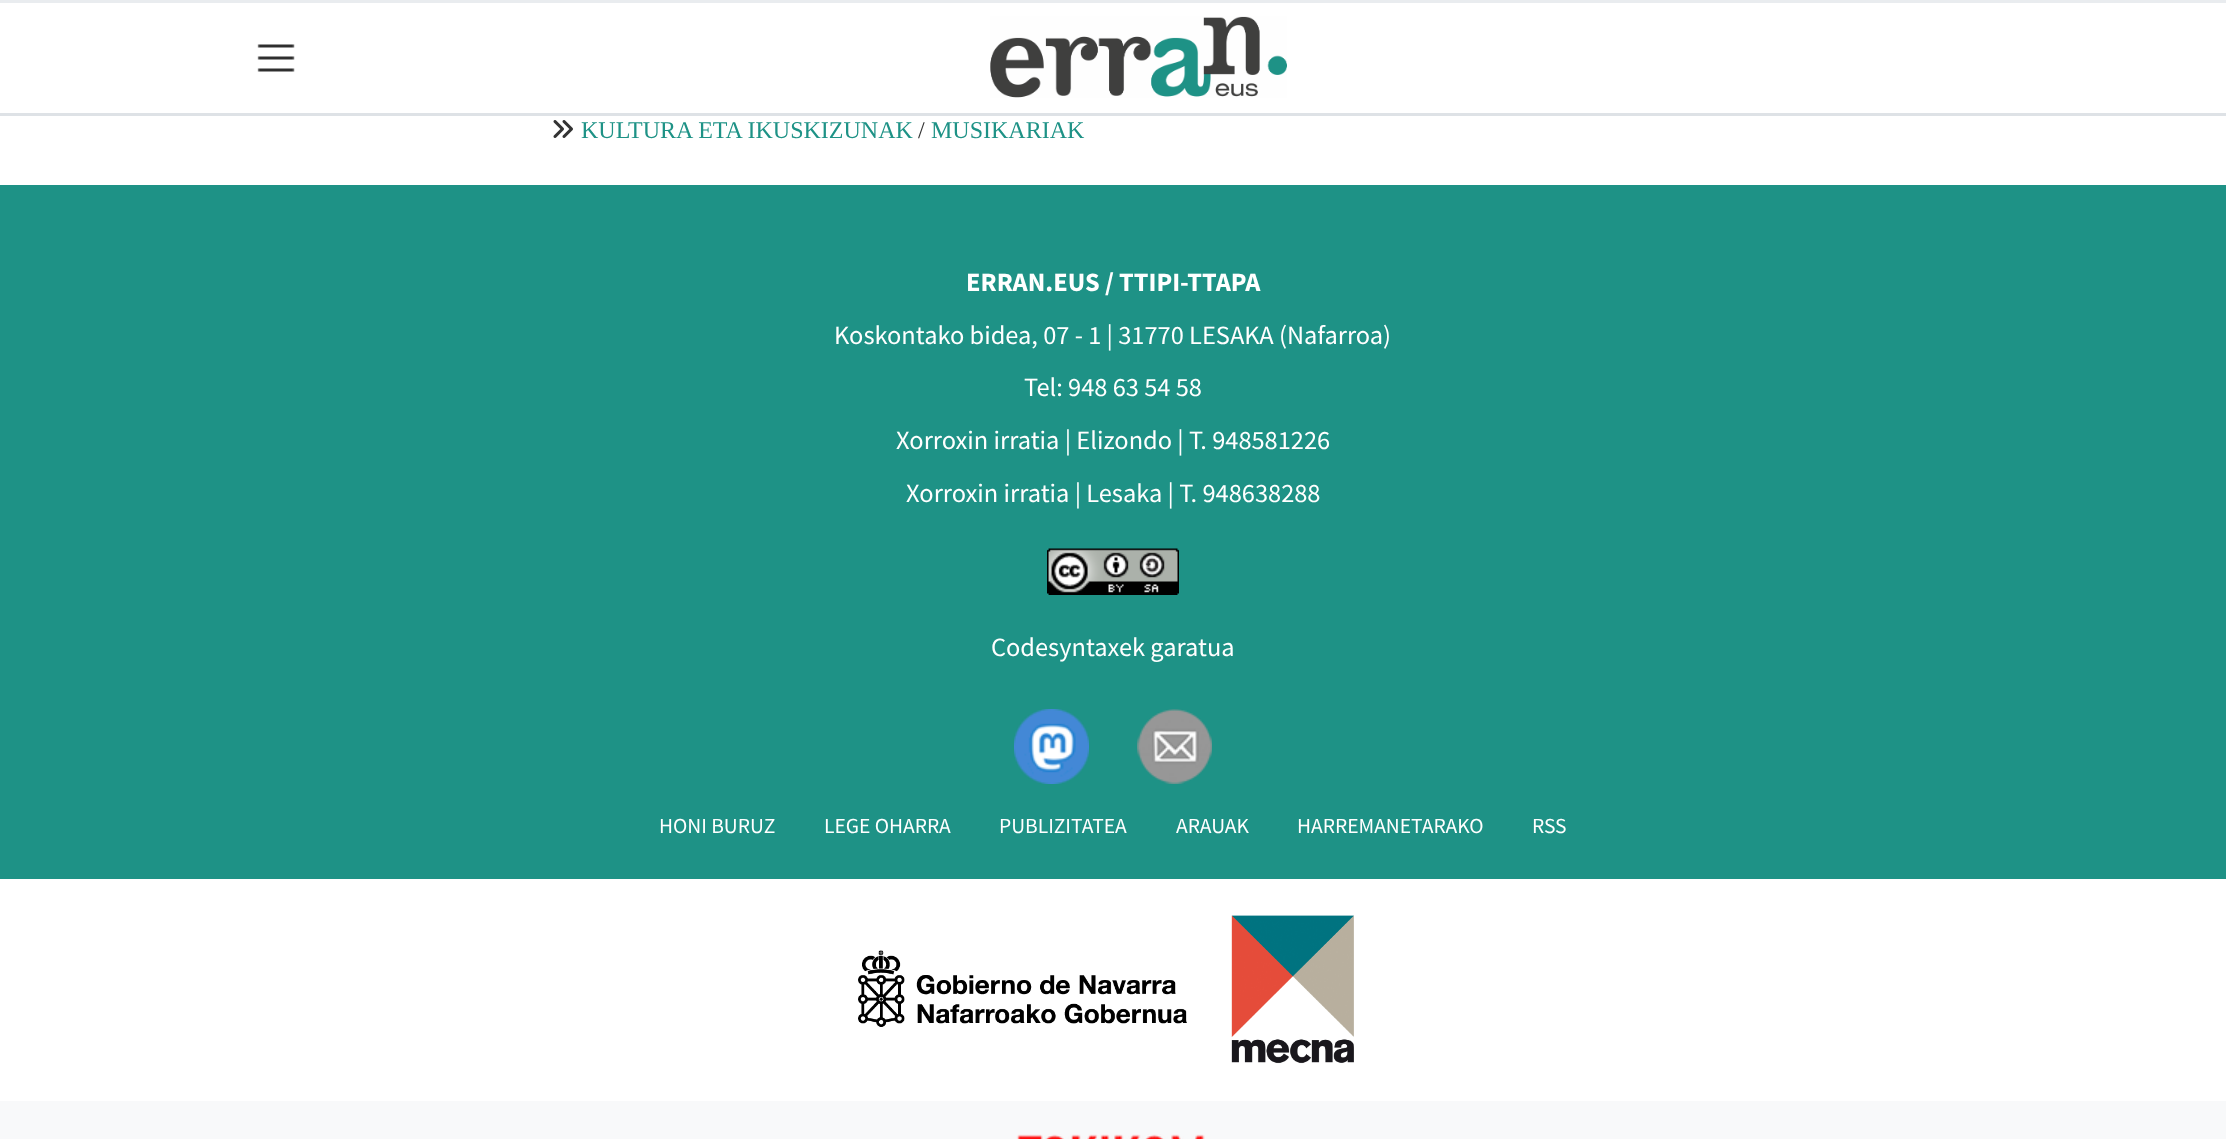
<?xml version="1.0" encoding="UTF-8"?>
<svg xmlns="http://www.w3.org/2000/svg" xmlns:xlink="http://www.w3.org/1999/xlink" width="2226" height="1139">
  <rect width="100%" height="100%" fill="#ffffff" />
  <rect width="2226" height="3" fill="#e9ecef" />
  <image x="257" y="44" width="38" height="28" xlink:href="image1.png" />
  <image x="990" y="16" width="297" height="82" xlink:href="image2.png" />
  <rect y="113" width="2226" height="3" fill="#dee2e6" />
  <image x="553" y="120" width="20" height="18" xlink:href="image3.png" />
  <rect y="185" width="2226" height="694" fill="#1e9286" />
  <image x="1047" y="548" width="132" height="47" xlink:href="image4.png" />
  <image x="1014" y="709" width="75" height="75" xlink:href="image5.png" />
  <image x="1137" y="709" width="75" height="75" xlink:href="image6.png" />
  <image x="858" y="950" width="329" height="77" xlink:href="image7.png" />
  <image x="1231" y="915" width="123" height="149" xlink:href="image8.png" />
  <rect y="1101" width="2226" height="38" fill="#f8f9fa" />
  <image x="1016" y="1134" width="189" height="5" xlink:href="image9.png" />
  <text x="581" y="138" style="font-family: Liberation Serif; font-size: 24px; fill: #1e9286">KULTURA ETA IKUSKIZUNAK</text>
  <text x="918" y="138" style="font-family: Liberation Serif; font-size: 24px; fill: #333333">/</text>
  <text x="931" y="138" style="font-family: Liberation Serif; font-size: 24px; fill: #1e9286">MUSIKARIAK</text>
  <text x="966" y="291" style="font-family: Source Sans Pro; font-size: 26.4px; font-weight: bold; fill: #ffffff">ERRAN.EUS / TTIPI-TTAPA</text>
  <text x="834" y="344" style="font-family: Source Sans Pro; font-size: 26.4px; fill: #ffffff">Koskontako bidea, 07 - 1 | 31770 LESAKA (Nafarroa)</text>
  <text x="1024" y="396" style="font-family: Source Sans Pro; font-size: 26.4px; fill: #ffffff">Tel: 948 63 54 58</text>
  <text x="896" y="449" style="font-family: Source Sans Pro; font-size: 26.4px; fill: #ffffff">Xorroxin irratia | Elizondo | T. 948581226</text>
  <text x="906" y="502" style="font-family: Source Sans Pro; font-size: 26.4px; fill: #ffffff">Xorroxin irratia | Lesaka | T. 948638288</text>
  <text x="991" y="656" style="font-family: Source Sans Pro; font-size: 26.4px; fill: #ffffff">Codesyntaxek garatua</text>
  <text x="659" y="833" style="font-family: Source Sans Pro; font-size: 21.5px; fill: #ffffff">HONI BURUZ</text>
  <text x="824" y="833" style="font-family: Source Sans Pro; font-size: 21.5px; fill: #ffffff">LEGE OHARRA</text>
  <text x="999" y="833" style="font-family: Source Sans Pro; font-size: 21.5px; fill: #ffffff">PUBLIZITATEA</text>
  <text x="1176" y="833" style="font-family: Source Sans Pro; font-size: 21.5px; fill: #ffffff">ARAUAK</text>
  <text x="1297" y="833" style="font-family: Source Sans Pro; font-size: 21.5px; fill: #ffffff">HARREMANETARAKO</text>
  <text x="1532" y="833" style="font-family: Source Sans Pro; font-size: 21.5px; fill: #ffffff">RSS</text>
</svg>
